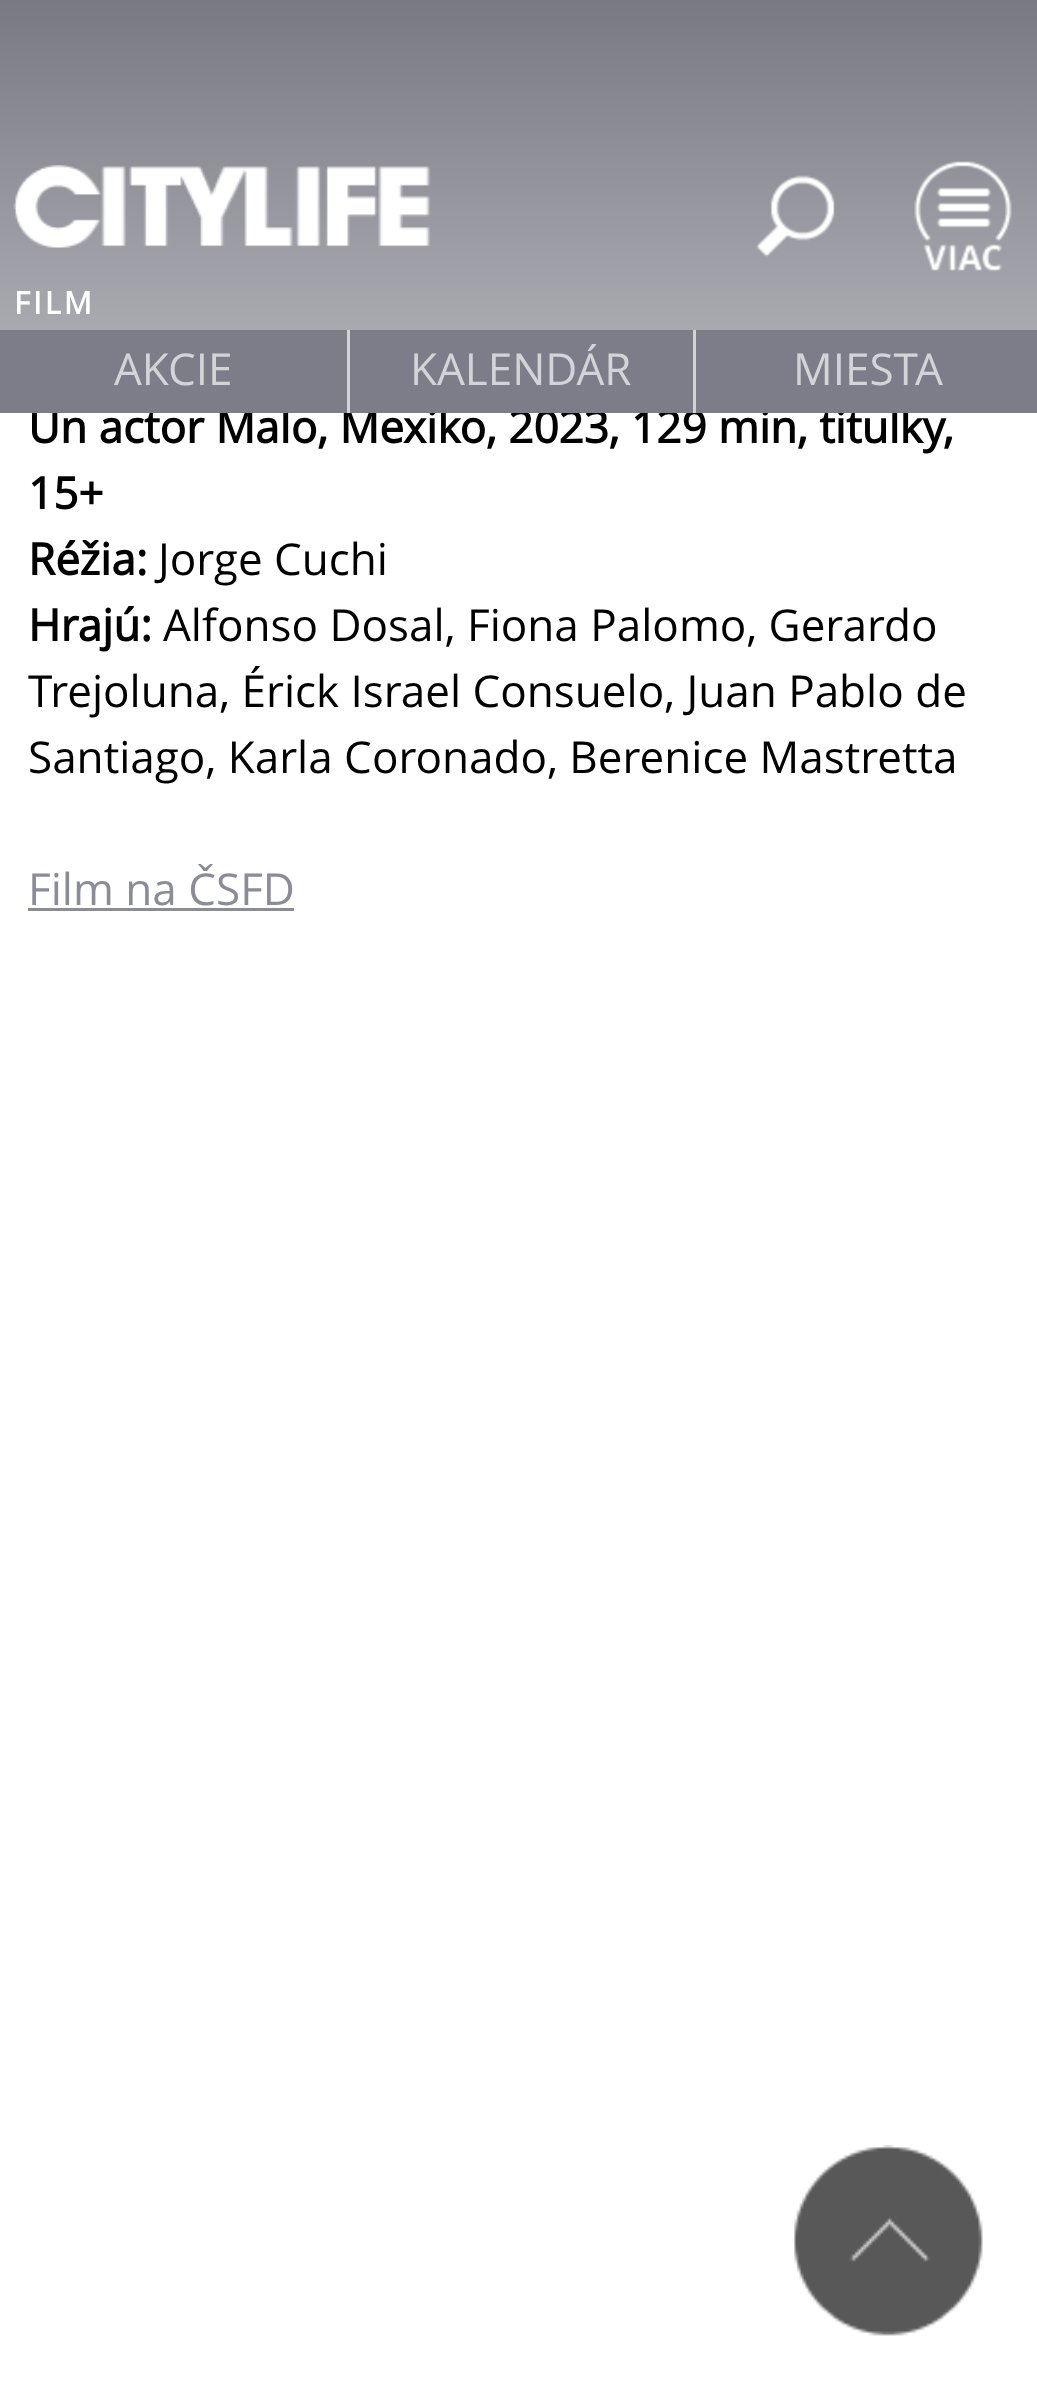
<?xml version="1.0" encoding="UTF-8"?>
<svg xmlns="http://www.w3.org/2000/svg" xmlns:xlink="http://www.w3.org/1999/xlink" width="1037" height="2391">
  <defs>
    <linearGradient id="g1" gradientUnits="userSpaceOnUse" x1="520" y1="0" x2="520" y2="330"><stop offset="0" stop-color="#797984" /><stop offset="1" stop-color="#a9a9b0" /></linearGradient>
  </defs>
  <rect width="100%" height="100%" fill="#ffffff" />
  <rect width="1037" height="330" fill="url(#g1)" />
  <image x="13" y="165" width="418" height="83" xlink:href="image1.png" />
  <image x="756" y="175" width="79" height="83" xlink:href="image2.png" />
  <image x="914" y="161" width="98" height="111" xlink:href="image3.png" />
  <rect x="28" y="908" width="266" height="3" fill="#8c8c99" />
  <image x="792" y="2145" width="191" height="191" xlink:href="image4.png" />
  <text x="14" y="314" style="font-family: Open Sans; font-size: 31px; font-weight: bold; letter-spacing: 3px; fill: #ffffff">FILM</text>
  <text x="28" y="443" style="font-family: Open Sans; font-size: 44px; font-weight: bold; fill: #000000">Un actor Malo, Mexiko, 2023, 129 min, titulky,</text>
  <text x="28" y="509" style="font-family: Open Sans; font-size: 44px; font-weight: bold; fill: #000000">15+</text>
  <text x="28" y="575" style="font-family: Open Sans; font-size: 44px; font-weight: bold; fill: #000000">Réžia:</text>
  <text x="158" y="575" style="font-family: Open Sans; font-size: 44px; fill: #000000">Jorge Cuchi</text>
  <text x="28" y="641" style="font-family: Open Sans; font-size: 44px; font-weight: bold; fill: #000000">Hrajú:</text>
  <text x="163" y="641" style="font-family: Open Sans; font-size: 44px; fill: #000000">Alfonso Dosal, Fiona Palomo, Gerardo</text>
  <text x="28" y="707" style="font-family: Open Sans; font-size: 44px; fill: #000000">Trejoluna, Érick Israel Consuelo, Juan Pablo de</text>
  <text x="28" y="773" style="font-family: Open Sans; font-size: 44px; fill: #000000">Santiago, Karla Coronado, Berenice Mastretta</text>
  <text x="28" y="905" style="font-family: Open Sans; font-size: 44px; fill: #8c8c99">Film na ČSFD</text>
  <rect y="330" width="347" height="83" fill="#7d7d89" />
  <text x="114" y="385" style="font-family: Open Sans; font-size: 44px; fill: #d3d3d8">AKCIE</text>
  <rect x="350" y="330" width="343" height="83" fill="#7d7d89" />
  <rect x="347" y="330" width="3" height="83" fill="#d3d3d7" />
  <text x="410" y="385" style="font-family: Open Sans; font-size: 44px; fill: #d3d3d8">KALENDÁR</text>
  <rect x="696" y="330" width="341" height="83" fill="#7d7d89" />
  <rect x="693" y="330" width="3" height="83" fill="#d3d3d7" />
  <text x="793" y="385" style="font-family: Open Sans; font-size: 44px; fill: #d3d3d8">MIESTA</text>
</svg>
